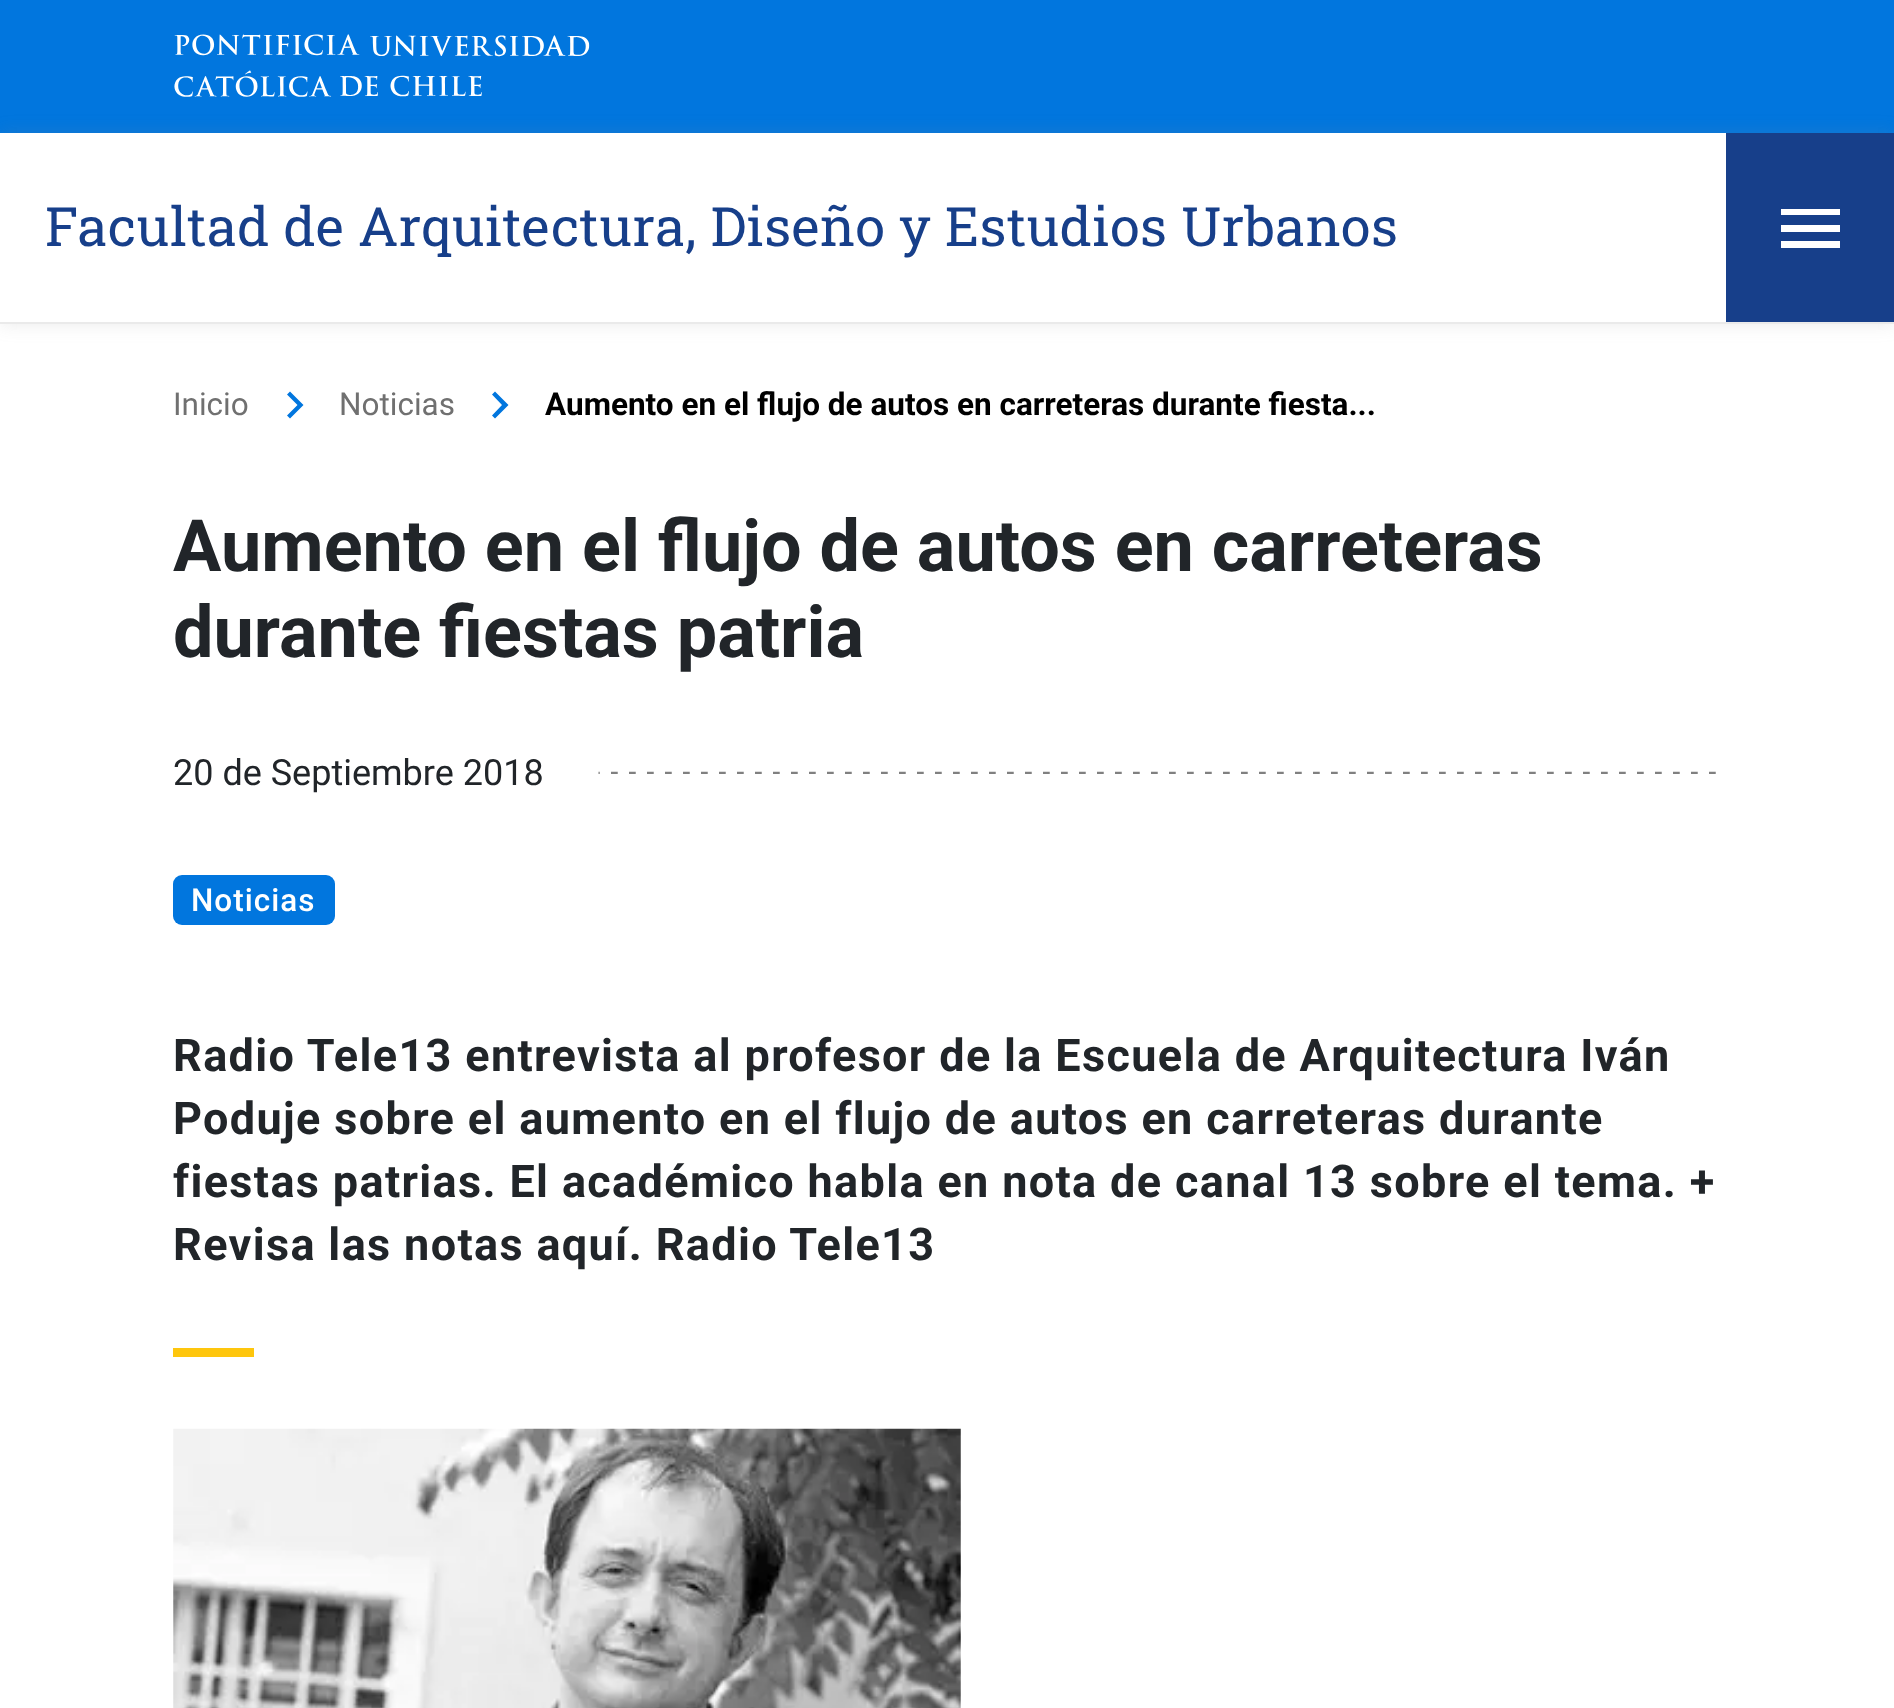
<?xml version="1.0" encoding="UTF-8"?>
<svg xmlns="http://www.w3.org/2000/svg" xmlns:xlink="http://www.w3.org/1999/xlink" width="1894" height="1708">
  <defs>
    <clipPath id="clip1"><path d="M 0 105 h 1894 v 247 h -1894 z m 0 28 h 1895 v 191 h -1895 z" clip-rule="evenodd" /></clipPath>
  </defs>
  <rect width="100%" height="100%" fill="#ffffff" />
  <rect width="1894" height="133" fill="#0176de" />
  <image x="174" y="34" width="416" height="63" xlink:href="image1.png" />
  <g clip-path="url(#clip1)">
    <rect y="133" width="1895" height="191" fill="#888888" fill-opacity="0.18" filter="blur(9px)" />
  </g>
  <rect y="322" width="1894" height="2" fill="#eaeaea" />
  <rect x="1726" y="133" width="168" height="189" fill="#173f8a" />
  <path d="M 1781 209 h 59 v 6 h -59 z m 0 23 v -7 h 59 v 7 z m 0 16 v -7 h 59 v 7 z" fill="#ffffff" />
  <path d="M 287 415.5 l 10.5 -10.5 l -10.5 -10.5 l 3 -3 l 13.5 13.5 l -13.5 13.5 z" fill="#0176de" />
  <path d="M 492 415.5 l 10 -10.5 l -10 -10.5 l 3 -3 l 13.5 13.5 l -13.5 13.5 z" fill="#0176de" />
  <image x="598" y="771" width="1118" height="3" xlink:href="image2.png" />
  <rect x="173" y="875" width="162" height="50" rx="9" fill="#0176de" />
  <rect x="173" y="1348" width="81" height="9" fill="#fec60d" />
  <image x="173" y="1428" width="788" height="280" xlink:href="image3.png" />
  <text x="45" y="246" style="font-family: Roboto Slab; font-size: 54px; letter-spacing: 0.4px; fill: #173f8a">Facultad de Arquitectura, Diseño y Estudios Urbanos</text>
  <text x="173" y="415" style="font-family: Roboto; font-size: 31.5px; fill: #707070">Inicio</text>
  <text x="339" y="415" style="font-family: Roboto; font-size: 31.5px; fill: #707070">Noticias</text>
  <text x="545" y="415" style="font-family: Roboto; font-size: 31.5px; font-weight: bold; fill: #000000">Aumento en el flujo de autos en carreteras durante fiesta...</text>
  <text x="173" y="571" style="font-family: Roboto; font-size: 72px; font-weight: bold; fill: #212529">Aumento en el flujo de autos en carreteras</text>
  <text x="173" y="657" style="font-family: Roboto; font-size: 72px; font-weight: bold; fill: #212529">durante fiestas patria</text>
  <text x="173" y="785" style="font-family: Roboto; font-size: 36px; fill: #212529">20 de Septiembre 2018</text>
  <text x="191" y="911" style="font-family: Roboto; font-size: 31.5px; font-weight: 500; letter-spacing: 1px; fill: #ffffff">Noticias</text>
  <text x="173" y="1071" style="font-family: Roboto; font-size: 45px; font-weight: bold; letter-spacing: 1.35px; fill: #212529">Radio Tele13 entrevista al profesor de la Escuela de Arquitectura Iván</text>
  <text x="173" y="1134" style="font-family: Roboto; font-size: 45px; font-weight: bold; letter-spacing: 1.35px; fill: #212529">Poduje sobre el aumento en el flujo de autos en carreteras durante</text>
  <text x="173" y="1197" style="font-family: Roboto; font-size: 45px; font-weight: bold; letter-spacing: 1.35px; fill: #212529">fiestas patrias. El académico habla en nota de canal 13 sobre el tema. +</text>
  <text x="173" y="1260" style="font-family: Roboto; font-size: 45px; font-weight: bold; letter-spacing: 1.35px; fill: #212529">Revisa las notas aquí. Radio Tele13</text>
</svg>
